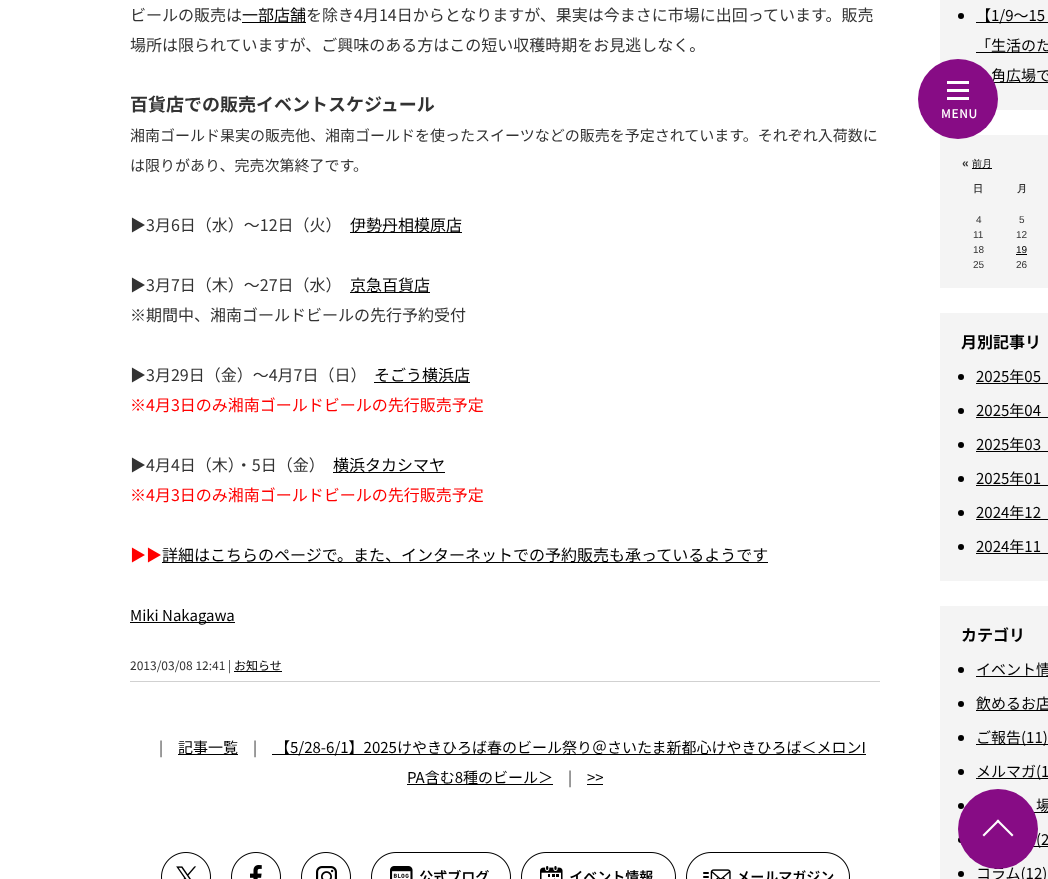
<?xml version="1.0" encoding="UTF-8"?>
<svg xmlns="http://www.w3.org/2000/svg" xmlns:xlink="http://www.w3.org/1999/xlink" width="1048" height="879">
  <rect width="100%" height="100%" fill="#ffffff" />
  <rect x="130" y="681" width="750" height="1" fill="#d1d1d1" />
  <rect x="242" y="22" width="64" height="1" fill="#000000" />
  <rect x="350" y="232" width="112" height="1" fill="#000000" />
  <rect x="350" y="292" width="80" height="1" fill="#000000" />
  <rect x="374" y="382" width="96" height="1" fill="#000000" />
  <rect x="333" y="472" width="112" height="1" fill="#000000" />
  <rect x="162" y="562" width="606" height="1" fill="#000000" />
  <rect x="130" y="622" width="105" height="1" fill="#000000" />
  <rect x="234" y="671" width="48" height="1" fill="#000000" />
  <rect x="178" y="754" width="60" height="1" fill="#000000" />
  <rect x="272" y="754" width="594" height="1" fill="#000000" />
  <rect x="407" y="784" width="146" height="1" fill="#000000" />
  <rect x="587" y="784" width="16" height="1" fill="#000000" />
  <image x="161" y="852" width="50" height="27" xlink:href="image1.png" />
  <image x="231" y="852" width="50" height="27" xlink:href="image2.png" />
  <image x="301" y="852" width="50" height="27" xlink:href="image3.png" />
  <image x="371" y="852" width="140" height="27" xlink:href="image4.png" />
  <image x="521" y="852" width="155" height="27" xlink:href="image5.png" />
  <image x="686" y="852" width="164" height="27" xlink:href="image6.png" />
  <rect x="940" width="108" height="110" fill="#f4f4f4" />
  <circle cx="961" cy="16" r="3" fill="#000000" />
  <rect x="976" y="22" width="72" height="1" fill="#000000" />
  <rect x="976" y="52" width="72" height="1" fill="#000000" />
  <rect x="994" y="82" width="54" height="1" fill="#000000" />
  <rect x="940" y="135" width="108" height="153" fill="#f4f4f4" />
  <rect x="972" y="168" width="20" height="1" fill="#000000" />
  <rect x="1016" y="254" width="11" height="1" fill="#000000" />
  <rect x="940" y="313" width="108" height="268" fill="#f4f4f4" />
  <circle cx="961" cy="377" r="3" fill="#000000" />
  <rect x="976" y="383" width="72" height="1" fill="#000000" />
  <circle cx="961" cy="411" r="3" fill="#000000" />
  <rect x="976" y="417" width="72" height="1" fill="#000000" />
  <circle cx="961" cy="445" r="3" fill="#000000" />
  <rect x="976" y="451" width="72" height="1" fill="#000000" />
  <circle cx="961" cy="479" r="3" fill="#000000" />
  <rect x="976" y="485" width="72" height="1" fill="#000000" />
  <circle cx="961" cy="513" r="3" fill="#000000" />
  <rect x="976" y="519" width="72" height="1" fill="#000000" />
  <circle cx="961" cy="547" r="3" fill="#000000" />
  <rect x="976" y="553" width="72" height="1" fill="#000000" />
  <rect x="940" y="606" width="108" height="273" fill="#f4f4f4" />
  <circle cx="961" cy="670" r="3" fill="#000000" />
  <rect x="976" y="676" width="72" height="1" fill="#000000" />
  <circle cx="961" cy="704" r="3" fill="#000000" />
  <rect x="976" y="710" width="72" height="1" fill="#000000" />
  <circle cx="961" cy="738" r="3" fill="#000000" />
  <rect x="976" y="744" width="72" height="1" fill="#000000" />
  <circle cx="961" cy="772" r="3" fill="#000000" />
  <rect x="976" y="778" width="72" height="1" fill="#000000" />
  <circle cx="961" cy="806" r="3" fill="#000000" />
  <rect x="1034" y="812" width="14" height="1" fill="#000000" />
  <circle cx="961" cy="840" r="3" fill="#000000" />
  <rect x="1033" y="846" width="15" height="1" fill="#000000" />
  <circle cx="961" cy="874" r="3" fill="#000000" />
  <text x="130" y="21" style="font-family: Noto Sans JP; font-size: 16px; fill: #333333">ビールの販売は</text>
  <text x="242" y="21" style="font-family: Noto Sans JP; font-size: 16px; fill: #000000">一部店舗</text>
  <text x="306" y="21" style="font-family: Noto Sans JP; font-size: 16px; fill: #333333">を除き4月14日からとなりますが、果実は今まさに市場に出回っています。販売</text>
  <text x="130" y="51" style="font-family: Noto Sans JP; font-size: 16px; fill: #333333">場所は限られていますが、ご興味のある方はこの短い収穫時期をお見逃しなく。</text>
  <text x="130" y="111" style="font-family: Noto Sans JP; font-size: 18px; font-weight: bold; fill: #333333">百貨店での販売イベントスケジュール</text>
  <text x="130" y="141" style="font-family: Noto Sans JP; font-size: 15px; fill: #333333">湘南ゴールド果実の販売他、湘南ゴールドを使ったスイーツなどの販売を予定されています。それぞれ入荷数に</text>
  <text x="130" y="171" style="font-family: Noto Sans JP; font-size: 15px; fill: #333333">は限りがあり、完売次第終了です。</text>
  <text x="130" y="231" style="font-family: Noto Sans JP; font-size: 16px; fill: #333333">▶3月6日（水）～12日（火）</text>
  <text x="350" y="231" style="font-family: Noto Sans JP; font-size: 16px; fill: #000000">伊勢丹相模原店</text>
  <text x="130" y="291" style="font-family: Noto Sans JP; font-size: 16px; fill: #333333">▶3月7日（木）～27日（水）</text>
  <text x="350" y="291" style="font-family: Noto Sans JP; font-size: 16px; fill: #000000">京急百貨店</text>
  <text x="130" y="321" style="font-family: Noto Sans JP; font-size: 16px; fill: #333333">※期間中、湘南ゴールドビールの先行予約受付</text>
  <text x="130" y="381" style="font-family: Noto Sans JP; font-size: 16px; fill: #333333">▶3月29日（金）～4月7日（日）</text>
  <text x="374" y="381" style="font-family: Noto Sans JP; font-size: 16px; fill: #000000">そごう横浜店</text>
  <text x="130" y="411" style="font-family: Noto Sans JP; font-size: 16px; fill: #ff0000">※4月3日のみ湘南ゴールドビールの先行販売予定</text>
  <text x="130" y="471" style="font-family: Noto Sans JP; font-size: 16px; fill: #333333">▶4月4日（木）・5日（金）</text>
  <text x="333" y="471" style="font-family: Noto Sans JP; font-size: 16px; fill: #000000">横浜タカシマヤ</text>
  <text x="130" y="501" style="font-family: Noto Sans JP; font-size: 16px; fill: #ff0000">※4月3日のみ湘南ゴールドビールの先行販売予定</text>
  <text x="130" y="561" style="font-family: Noto Sans JP; font-size: 16px; fill: #ff0000">▶▶</text>
  <text x="162" y="561" style="font-family: Noto Sans JP; font-size: 16px; fill: #000000">詳細はこちらのページで。また、インターネットでの予約販売も承っているようです</text>
  <text x="130" y="621" style="font-family: Noto Sans JP; font-size: 15px; fill: #000000">Miki Nakagawa</text>
  <text x="130" y="670" style="font-family: Noto Sans JP; font-size: 12px; fill: #333333">2013/03/08 12:41 |</text>
  <text x="234" y="670" style="font-family: Noto Sans JP; font-size: 12px; fill: #000000">お知らせ</text>
  <text x="159" y="753" style="font-family: Noto Sans JP; font-size: 15px; fill: #333333">|</text>
  <text x="178" y="753" style="font-family: Noto Sans JP; font-size: 15px; fill: #000000">記事一覧</text>
  <text x="253" y="753" style="font-family: Noto Sans JP; font-size: 15px; fill: #333333">|</text>
  <text x="275" y="753" style="font-family: Noto Sans JP; font-size: 15px; fill: #000000">【5/28-6/1】2025けやきひろば春のビール祭り＠さいたま新都心けやきひろば＜メロンI</text>
  <text x="407" y="783" style="font-family: Noto Sans JP; font-size: 15px; fill: #000000">PA含む8種のビール＞</text>
  <text x="568" y="783" style="font-family: Noto Sans JP; font-size: 15px; fill: #333333">|</text>
  <text x="587" y="783" style="font-family: Noto Sans JP; font-size: 15px; fill: #000000">&gt;&gt;</text>
  <text x="976" y="21" style="font-family: Noto Sans JP; font-size: 15px; fill: #000000">【1/9～15</text>
  <text x="976" y="51" style="font-family: Noto Sans JP; font-size: 15px; fill: #000000">「生活のた</text>
  <text x="991" y="81" style="font-family: Noto Sans JP; font-size: 15px; fill: #000000">角広場で</text>
  <text x="962" y="167" style="font-family: Liberation Sans; font-size: 12px; font-weight: bold; fill: #333333">«</text>
  <text x="972" y="167" style="font-family: WenQuanYi Zen Hei; font-size: 10px; font-weight: 500; fill: #000000">前月</text>
  <text x="973" y="192" style="font-family: WenQuanYi Zen Hei; font-size: 10px; font-weight: bold; fill: #333333">日</text>
  <text x="1017" y="192" style="font-family: WenQuanYi Zen Hei; font-size: 10px; font-weight: bold; fill: #333333">月</text>
  <text x="976" y="223" style="font-family: Liberation Sans; font-size: 10px; fill: #333333">4</text>
  <text x="1019" y="223" style="font-family: Liberation Sans; font-size: 10px; fill: #333333">5</text>
  <text x="973" y="238" style="font-family: Liberation Sans; font-size: 10px; fill: #333333">11</text>
  <text x="1016" y="238" style="font-family: Liberation Sans; font-size: 10px; fill: #333333">12</text>
  <text x="973" y="253" style="font-family: Liberation Sans; font-size: 10px; fill: #333333">18</text>
  <text x="1016" y="253" style="font-family: Liberation Sans; font-size: 10px; fill: #000000">19</text>
  <text x="973" y="268" style="font-family: Liberation Sans; font-size: 10px; fill: #333333">25</text>
  <text x="1016" y="268" style="font-family: Liberation Sans; font-size: 10px; fill: #333333">26</text>
  <text x="961" y="348" style="font-family: Noto Sans JP; font-size: 16px; font-weight: bold; fill: #000000">月別記事リ</text>
  <text x="976" y="382" style="font-family: Noto Sans JP; font-size: 15px; fill: #000000">2025年05</text>
  <text x="976" y="416" style="font-family: Noto Sans JP; font-size: 15px; fill: #000000">2025年04</text>
  <text x="976" y="450" style="font-family: Noto Sans JP; font-size: 15px; fill: #000000">2025年03</text>
  <text x="976" y="484" style="font-family: Noto Sans JP; font-size: 15px; fill: #000000">2025年01</text>
  <text x="976" y="518" style="font-family: Noto Sans JP; font-size: 15px; fill: #000000">2024年12</text>
  <text x="976" y="552" style="font-family: Noto Sans JP; font-size: 15px; fill: #000000">2024年11</text>
  <text x="961" y="641" style="font-family: Noto Sans JP; font-size: 16px; font-weight: bold; fill: #000000">カテゴリ</text>
  <text x="976" y="675" style="font-family: Noto Sans JP; font-size: 15px; fill: #000000">イベント情</text>
  <text x="976" y="709" style="font-family: Noto Sans JP; font-size: 15px; fill: #000000">飲めるお店</text>
  <text x="976" y="743" style="font-family: Noto Sans JP; font-size: 15px; fill: #000000">ご報告(11)</text>
  <text x="976" y="777" style="font-family: Noto Sans JP; font-size: 15px; fill: #000000">メルマガ(1</text>
  <text x="1036" y="811" style="font-family: Noto Sans JP; font-size: 15px; fill: #000000">場</text>
  <text x="1036" y="845" style="font-family: Noto Sans JP; font-size: 15px; fill: #000000">(2</text>
  <text x="976" y="879" style="font-family: Noto Sans JP; font-size: 15px; fill: #000000">コラム(12)</text>
  <circle cx="998" cy="829" r="40" fill="#870c85" />
  <path d="M 982.5 835 l 15.5 -15.5 l 1.5 1.5 l -15.5 15.5 z" fill="#ffffff" />
  <path d="M 996.5 821 l 1.5 -1.5 l 15.5 15.5 l -1.5 1.5 z" fill="#ffffff" />
  <circle cx="958" cy="99" r="40" fill="#870c85" />
  <rect x="947" y="89" width="22" height="3" fill="#ffffff" />
  <rect x="947" y="81" width="22" height="3" fill="#ffffff" />
  <rect x="947" y="97" width="22" height="3" fill="#ffffff" />
  <text x="941" y="118" style="font-family: Noto Sans JP; font-size: 12px; font-weight: 500; letter-spacing: 0.5px; fill: #ffffff">MENU</text>
</svg>
